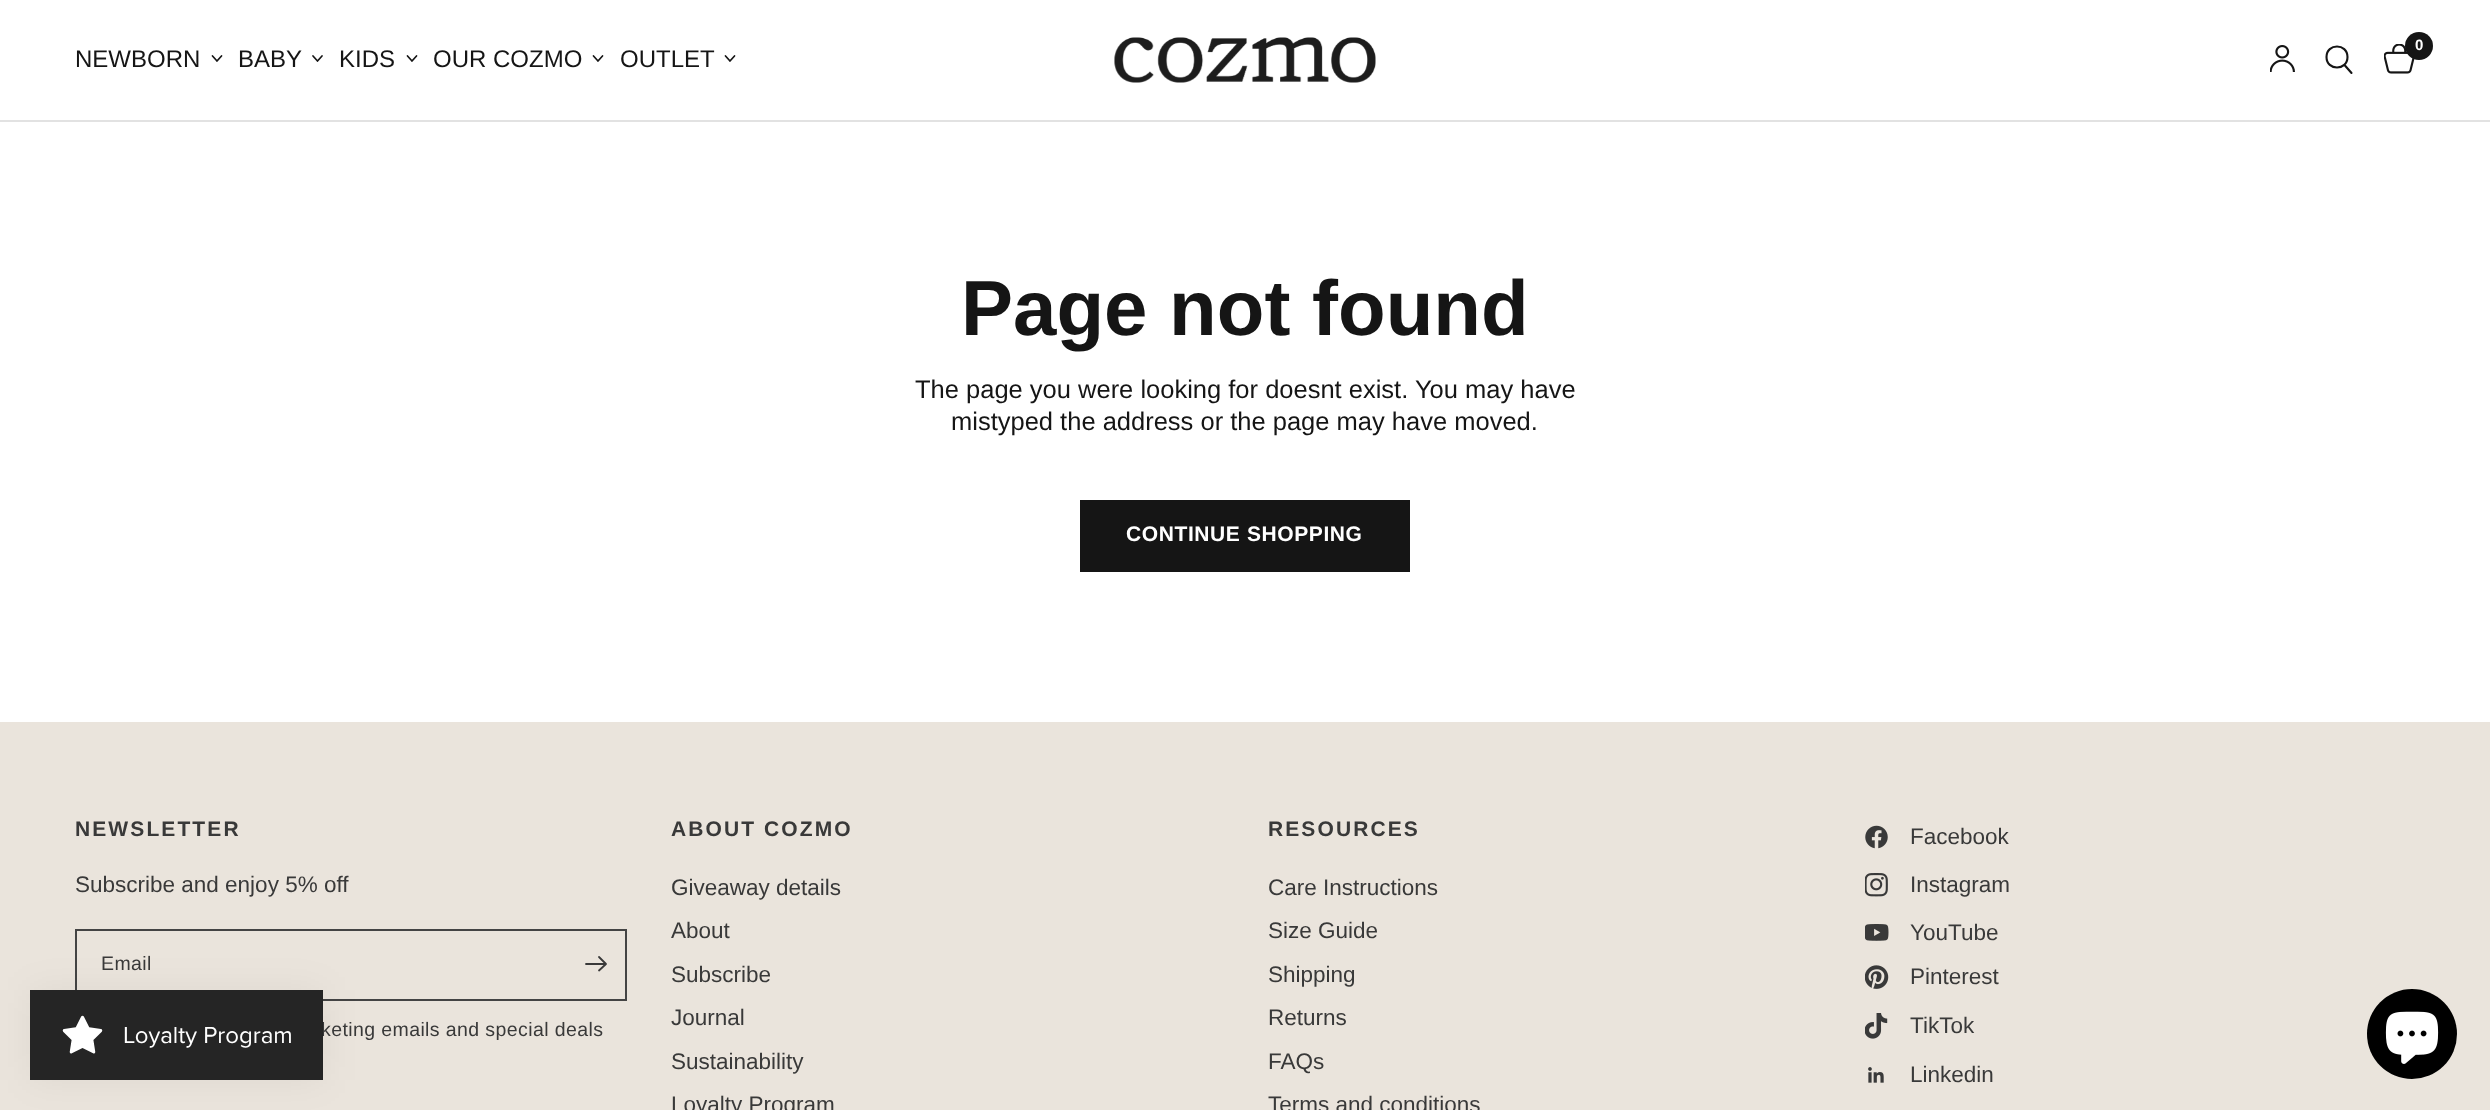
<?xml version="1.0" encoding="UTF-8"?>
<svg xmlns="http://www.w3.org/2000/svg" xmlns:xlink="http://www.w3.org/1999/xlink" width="2490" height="1110">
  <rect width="100%" height="100%" fill="#ffffff" />
  <rect y="120" width="2490" height="2" fill="#e2e2e2" />
  <image x="1114" y="37" width="262" height="46" xlink:href="image1.png" />
  <image x="2270" y="45" width="25" height="27" xlink:href="image2.png" />
  <path d="M 2344.5 65 l 7 8 m -4 -16 c 0 14 -21 14 -21 0 c 0 -14 21 -14 21 0 z" fill="none" stroke="#151515" stroke-width="2.1" stroke-linecap="round" stroke-linejoin="round" />
  <image x="2384" y="44" width="31" height="30" xlink:href="image3.png" />
  <circle cx="2419" cy="46" r="14" fill="#151515" />
  <path d="M 221.5 56 l -4.5 5 l -4.5 -5" fill="none" stroke="#151515" stroke-width="1.7" stroke-linecap="round" stroke-linejoin="round" />
  <path d="M 322 56 l -4.5 5 l -4.5 -5" fill="none" stroke="#151515" stroke-width="1.7" stroke-linecap="round" stroke-linejoin="round" />
  <path d="M 416.5 56 l -4.5 5 l -4.5 -5" fill="none" stroke="#151515" stroke-width="1.7" stroke-linecap="round" stroke-linejoin="round" />
  <path d="M 602.5 56 l -4.5 5 l -4.5 -5" fill="none" stroke="#151515" stroke-width="1.7" stroke-linecap="round" stroke-linejoin="round" />
  <path d="M 734.5 56 l -4.5 5 l -4.5 -5" fill="none" stroke="#151515" stroke-width="1.7" stroke-linecap="round" stroke-linejoin="round" />
  <rect x="1080" y="500" width="330" height="72" fill="#151515" />
  <rect y="722" width="2490" height="388" fill="#eae4dc" />
  <rect x="76" y="930" width="550" height="70" fill="none" stroke="#444444" stroke-width="2" />
  <path d="M 586 964 h 18 m -5 -7 l 7 7 l -7 6.5" fill="none" stroke="#393939" stroke-width="1.8" stroke-linecap="round" stroke-linejoin="round" />
  <image x="1865" y="825" width="23" height="24" xlink:href="image4.png" />
  <image x="1865" y="873" width="23" height="24" xlink:href="image5.png" />
  <image x="1865" y="924" width="24" height="17" xlink:href="image6.png" />
  <image x="1865" y="965" width="24" height="24" xlink:href="image7.png" />
  <image x="1865" y="1013" width="23" height="26" xlink:href="image8.png" />
  <image x="1868" y="1067" width="16" height="16" xlink:href="image9.png" />
  <rect x="30" y="990" width="293" height="90" fill="#000000" fill-opacity="0.05" filter="blur(19px)" />
  <circle cx="2412" cy="1034" r="45" fill="#000000" />
  <image x="2385" y="1011" width="54" height="53" xlink:href="image11.png" />
  <text x="2415" y="50" style="font-family: Liberation Sans; font-size: 15px; font-weight: bold; fill: #ffffff">0</text>
  <text x="75" y="67" style="font-family: Liberation Sans; font-size: 24px; fill: #151515">NEWBORN</text>
  <text x="238" y="67" style="font-family: Liberation Sans; font-size: 24px; fill: #151515">BABY</text>
  <text x="339" y="67" style="font-family: Liberation Sans; font-size: 24px; fill: #151515">KIDS</text>
  <text x="433" y="67" style="font-family: Liberation Sans; font-size: 24px; fill: #151515">OUR COZMO</text>
  <text x="620" y="67" style="font-family: Liberation Sans; font-size: 24px; fill: #151515">OUTLET</text>
  <text x="961" y="335" style="font-family: Liberation Sans; font-size: 78px; font-weight: bold; fill: #151515">Page not found</text>
  <text x="915" y="398" style="font-family: Liberation Sans; font-size: 25.5px; fill: #151515">The page you were looking for doesnt exist. You may have</text>
  <text x="951" y="430" style="font-family: Liberation Sans; font-size: 25.5px; fill: #151515">mistyped the address or the page may have moved.</text>
  <text x="1126" y="541" style="font-family: Liberation Sans; font-size: 21px; font-weight: bold; letter-spacing: 0.6px; fill: #ffffff">CONTINUE SHOPPING</text>
  <text x="75" y="836" style="font-family: Liberation Sans; font-size: 21px; font-weight: bold; letter-spacing: 2.1px; fill: #393939">NEWSLETTER</text>
  <text x="75" y="892" style="font-family: Liberation Sans; font-size: 22.5px; fill: #393939">Subscribe and enjoy 5% off</text>
  <text x="101" y="970" style="font-family: Liberation Sans; font-size: 19.5px; letter-spacing: 0.4px; fill: #393939">Email</text>
  <text x="321" y="1036" style="font-family: Liberation Sans; font-size: 19.5px; letter-spacing: 0.4px; fill: #393939">keting emails and special deals</text>
  <text x="671" y="836" style="font-family: Liberation Sans; font-size: 21px; font-weight: bold; letter-spacing: 2.1px; fill: #393939">ABOUT COZMO</text>
  <text x="671" y="895" style="font-family: Liberation Sans; font-size: 22.5px; fill: #393939">Giveaway details</text>
  <text x="671" y="938" style="font-family: Liberation Sans; font-size: 22.5px; fill: #393939">About</text>
  <text x="671" y="982" style="font-family: Liberation Sans; font-size: 22.5px; fill: #393939">Subscribe</text>
  <text x="671" y="1025" style="font-family: Liberation Sans; font-size: 22.5px; fill: #393939">Journal</text>
  <text x="671" y="1069" style="font-family: Liberation Sans; font-size: 22.5px; fill: #393939">Sustainability</text>
  <text x="671" y="1112" style="font-family: Liberation Sans; font-size: 22.5px; fill: #393939">Loyalty Program</text>
  <text x="1268" y="836" style="font-family: Liberation Sans; font-size: 21px; font-weight: bold; letter-spacing: 2.1px; fill: #393939">RESOURCES</text>
  <text x="1268" y="895" style="font-family: Liberation Sans; font-size: 22.5px; fill: #393939">Care Instructions</text>
  <text x="1268" y="938" style="font-family: Liberation Sans; font-size: 22.5px; fill: #393939">Size Guide</text>
  <text x="1268" y="982" style="font-family: Liberation Sans; font-size: 22.5px; fill: #393939">Shipping</text>
  <text x="1268" y="1025" style="font-family: Liberation Sans; font-size: 22.5px; fill: #393939">Returns</text>
  <text x="1268" y="1069" style="font-family: Liberation Sans; font-size: 22.5px; fill: #393939">FAQs</text>
  <text x="1268" y="1112" style="font-family: Liberation Sans; font-size: 22.5px; fill: #393939">Terms and conditions</text>
  <text x="1910" y="844" style="font-family: Liberation Sans; font-size: 22.5px; fill: #393939">Facebook</text>
  <text x="1910" y="892" style="font-family: Liberation Sans; font-size: 22.5px; fill: #393939">Instagram</text>
  <text x="1910" y="940" style="font-family: Liberation Sans; font-size: 22.5px; fill: #393939">YouTube</text>
  <text x="1910" y="984" style="font-family: Liberation Sans; font-size: 22.5px; fill: #393939">Pinterest</text>
  <text x="1910" y="1033" style="font-family: Liberation Sans; font-size: 22.5px; fill: #393939">TikTok</text>
  <text x="1910" y="1082" style="font-family: Liberation Sans; font-size: 22.5px; fill: #393939">Linkedin</text>
  <image x="30" y="990" width="293" height="90" xlink:href="image10.png" />
</svg>
